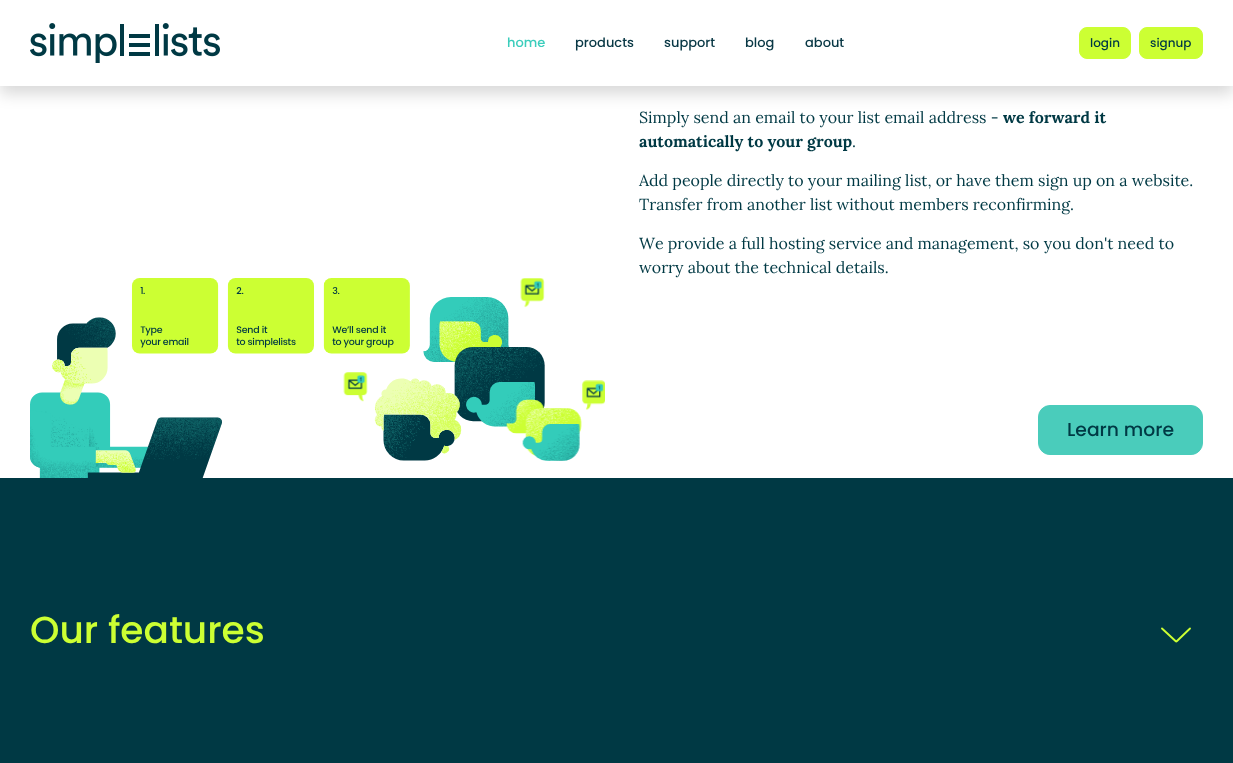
<?xml version="1.0" encoding="UTF-8"?>
<svg xmlns="http://www.w3.org/2000/svg" xmlns:xlink="http://www.w3.org/1999/xlink" width="1233" height="763">
  <style>*{font-kerning:none!important;font-variant-ligatures:none!important}</style>
  <rect width="100%" height="100%" fill="#ffffff" />
  <rect y="8" width="1233" height="86" fill="#000000" fill-opacity="0.15" filter="blur(7.5px)" />
  <rect width="1233" height="86" fill="#ffffff" />
  <image x="30" y="23" width="190" height="40" xlink:href="image1.png" />
  <rect x="1079.5" y="27.5" width="51" height="31" rx="7.5" fill="#ccff33" stroke="#ccff33" />
  <rect x="1139.5" y="27.5" width="63" height="31" rx="7.5" fill="#ccff33" stroke="#ccff33" />
  <image x="30" y="278" width="575" height="200" xlink:href="image2.png" />
  <rect x="1038.5" y="405.5" width="164" height="49" rx="11.5" fill="#4accbb" stroke="#4accbb" />
  <rect y="478" width="1233" height="285" fill="#003944" />
  <path d="M 1162 628.5 l 13.5 12.5 c 0.5 0.5 1 0.5 1.5 0 l 13 -12.5" fill="none" stroke="#ccff33" stroke-width="1.9" stroke-linecap="round" />
  <text x="507" y="47" style="font-family: Poppins; font-size: 13px; font-weight: 500; fill: #3bcdbc">home</text>
  <text x="575" y="47" style="font-family: Poppins; font-size: 13px; font-weight: 500; fill: #093845">products</text>
  <text x="664" y="47" style="font-family: Poppins; font-size: 13px; font-weight: 500; fill: #093845">support</text>
  <text x="745" y="47" style="font-family: Poppins; font-size: 13px; font-weight: 500; fill: #093845">blog</text>
  <text x="805" y="47" style="font-family: Poppins; font-size: 13px; font-weight: 500; fill: #093845">about</text>
  <text x="1090" y="47" style="font-family: Poppins; font-size: 12px; font-weight: 500; fill: #003944">login</text>
  <text x="1150" y="47" style="font-family: Poppins; font-size: 12px; font-weight: 500; fill: #003944">signup</text>
  <text x="639" y="123" style="font-family: Lora; font-size: 16px; fill: #003944">Simply send an email to your list email address -</text>
  <text x="1003" y="123" style="font-family: Lora; font-size: 16px; font-weight: bold; fill: #003944">we forward it</text>
  <text x="639" y="147" style="font-family: Lora; font-size: 16px; font-weight: bold; fill: #003944">automatically to your group</text>
  <text x="852" y="147" style="font-family: Lora; font-size: 16px; fill: #003944">.</text>
  <text x="639" y="186" style="font-family: Lora; font-size: 16px; fill: #003944">Add people directly to your mailing list, or have them sign up on a website.</text>
  <text x="639" y="210" style="font-family: Lora; font-size: 16px; fill: #003944">Transfer from another list without members reconﬁrming.</text>
  <text x="639" y="249" style="font-family: Lora; font-size: 16px; fill: #003944">We provide a full hosting service and management, so you don't need to</text>
  <text x="639" y="273" style="font-family: Lora; font-size: 16px; fill: #003944">worry about the technical details.</text>
  <text x="1067" y="436" style="font-family: Poppins; font-size: 18.75px; font-weight: 500; fill: #003944">Learn more</text>
  <text x="30" y="643" style="font-family: Poppins; font-size: 37.5px; font-weight: 500; fill: #ccff33">Our features</text>
</svg>
